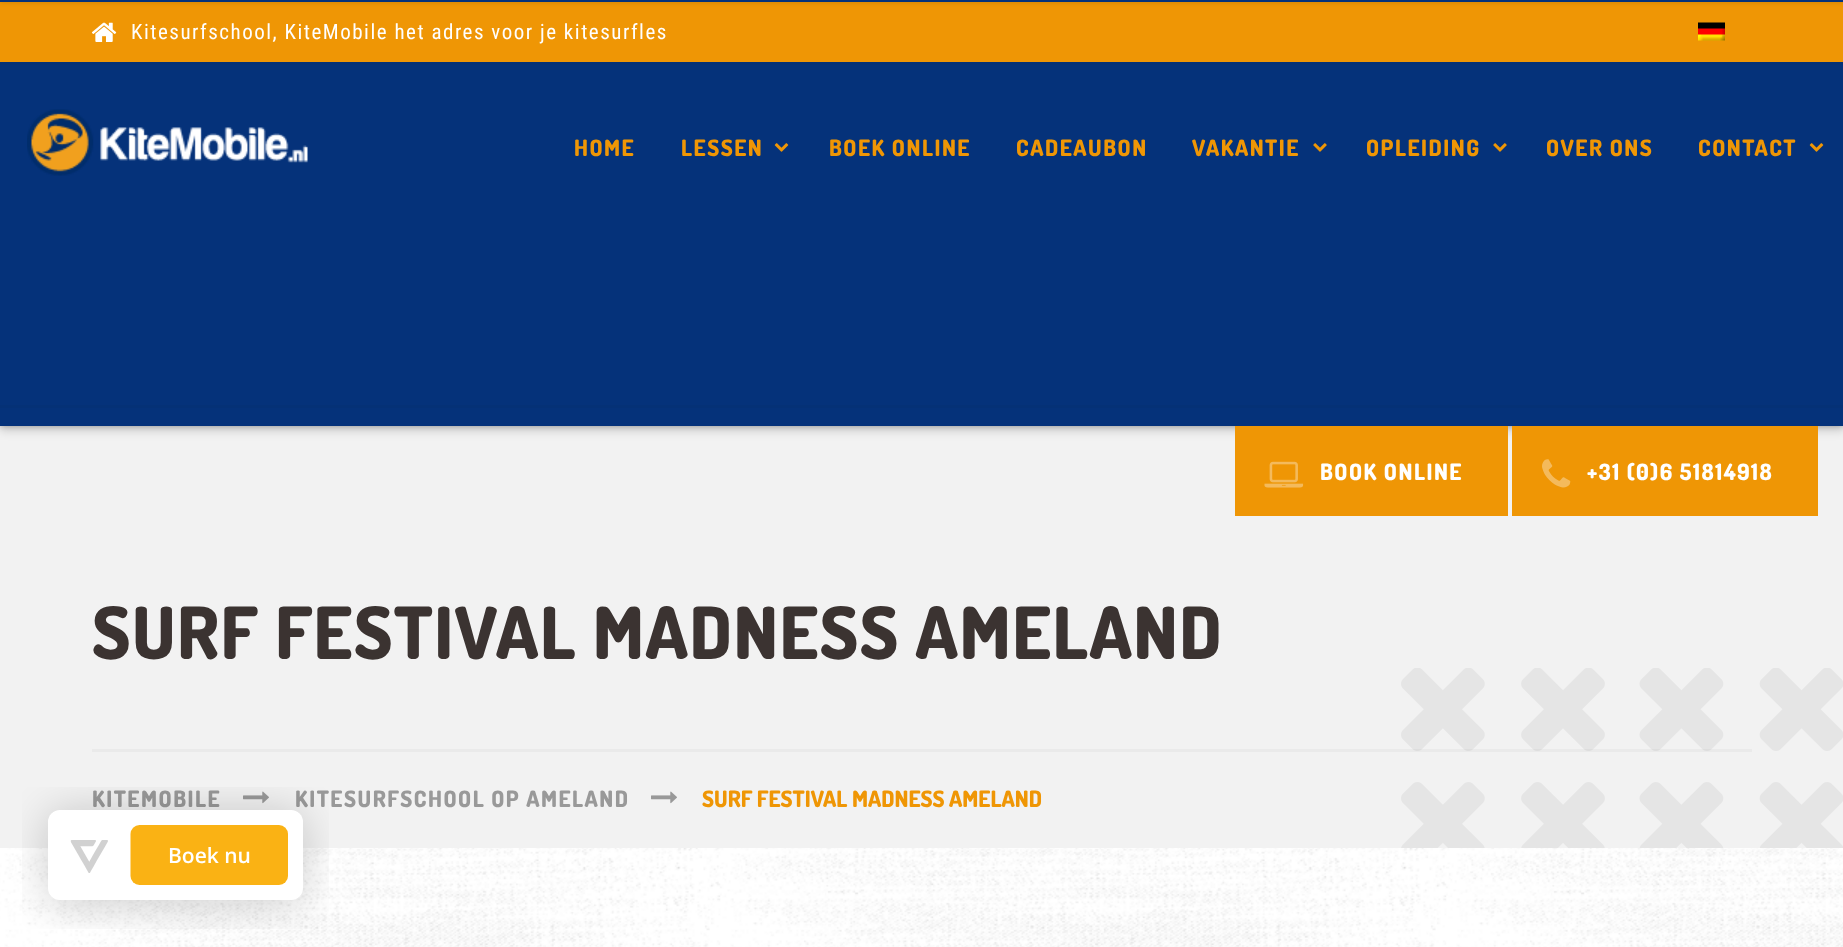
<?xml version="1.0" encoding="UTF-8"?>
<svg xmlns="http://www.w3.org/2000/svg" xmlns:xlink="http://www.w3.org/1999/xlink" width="1843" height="947">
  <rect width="100%" height="100%" fill="#ffffff" />
  <rect y="426" width="1843" height="422" fill="#f2f2f2" />
  <rect y="66" width="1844" height="365" fill="#000000" fill-opacity="0.15" filter="blur(5px)" />
  <rect y="60" width="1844" height="365" fill="#000000" fill-opacity="0.35" filter="blur(3px)" />
  <rect y="2" width="1843" height="60" fill="#ef9605" />
  <rect y="-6" width="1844" height="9" fill="#000000" fill-opacity="0.1" filter="blur(2px)" />
  <rect width="1843" height="2" fill="#05327a" />
  <image x="0" y="848" width="1843" height="99" xlink:href="image1.png" />
  <image x="91" y="22" width="26" height="20" xlink:href="image2.png" />
  <image x="1698" y="22" width="27" height="19" xlink:href="image3.png" />
  <rect y="65" width="1843" height="361" fill="#05327a" />
  <rect y="62" width="1843" height="3" fill="#053176" />
  <image x="27" y="109" width="281" height="67" xlink:href="image4.png" />
  <image x="774" y="143" width="15" height="9" xlink:href="image5.png" />
  <image x="1313" y="143" width="14" height="9" xlink:href="image6.png" />
  <image x="1493" y="143" width="14" height="9" xlink:href="image6.png" />
  <image x="1809" y="143" width="15" height="9" xlink:href="image5.png" />
  <rect x="1235" y="426" width="273" height="90" fill="#ef9605" />
  <image x="1264" y="461" width="40" height="27" xlink:href="image7.png" />
  <rect x="1512" y="426" width="306" height="90" fill="#ef9605" />
  <image x="1542" y="459" width="29" height="29" xlink:href="image8.png" />
  <rect y="405" width="1843" height="3" fill="#053176" />
  <image x="1401" y="668" width="442" height="180" xlink:href="image10.png" />
  <rect x="92" y="749" width="1660" height="3" fill="#000000" fill-opacity="0.03" />
  <image x="243" y="791" width="26" height="13" xlink:href="image9.png" />
  <image x="651" y="791" width="26" height="13" xlink:href="image9.png" />
  <text x="131" y="39" style="font-family: Roboto Condensed; font-size: 21px; letter-spacing: 1.5px; fill: #ffffff">Kitesurfschool, KiteMobile het adres voor je kitesurfles</text>
  <text x="574" y="156" style="font-family: Dosis; font-size: 22.5px; font-weight: 800; letter-spacing: 1.5px; fill: #ef9605">HOME</text>
  <text x="681" y="156" style="font-family: Dosis; font-size: 22.5px; font-weight: 800; letter-spacing: 1.5px; fill: #ef9605">LESSEN</text>
  <text x="829" y="156" style="font-family: Dosis; font-size: 22.5px; font-weight: 800; letter-spacing: 1.5px; fill: #ef9605">BOEK ONLINE</text>
  <text x="1016" y="156" style="font-family: Dosis; font-size: 22.5px; font-weight: 800; letter-spacing: 1.5px; fill: #ef9605">CADEAUBON</text>
  <text x="1192" y="156" style="font-family: Dosis; font-size: 22.5px; font-weight: 800; letter-spacing: 1.5px; fill: #ef9605">VAKANTIE</text>
  <text x="1366" y="156" style="font-family: Dosis; font-size: 22.5px; font-weight: 800; letter-spacing: 1.5px; fill: #ef9605">OPLEIDING</text>
  <text x="1546" y="156" style="font-family: Dosis; font-size: 22.5px; font-weight: 800; letter-spacing: 1.5px; fill: #ef9605">OVER ONS</text>
  <text x="1698" y="156" style="font-family: Dosis; font-size: 22.5px; font-weight: 800; letter-spacing: 1.5px; fill: #ef9605">CONTACT</text>
  <text x="1320" y="480" style="font-family: Dosis; font-size: 22.5px; font-weight: 800; letter-spacing: 1.5px; fill: #ffffff">BOOK ONLINE</text>
  <text x="1587" y="480" style="font-family: Dosis; font-size: 22.5px; font-weight: 800; letter-spacing: 1.5px; fill: #ffffff">+31 (0)6 51814918</text>
  <text x="92" y="659" style="font-family: Dosis; font-size: 72px; font-weight: 800; letter-spacing: 1.5px; fill: #3b3331">SURF FESTIVAL MADNESS AMELAND</text>
  <text x="92" y="807" style="font-family: Dosis; font-size: 22.5px; font-weight: 800; letter-spacing: 1.5px; fill: #999999">KITEMOBILE</text>
  <text x="295" y="807" style="font-family: Dosis; font-size: 22.5px; font-weight: 800; letter-spacing: 1.5px; fill: #999999">KITESURFSCHOOL OP AMELAND</text>
  <text x="702" y="807" style="font-family: Dosis; font-size: 22.5px; font-weight: 800; fill: #ef9605">SURF FESTIVAL MADNESS AMELAND</text>
  <image x="22" y="787" width="307" height="142" xlink:href="image11.png" />
</svg>
